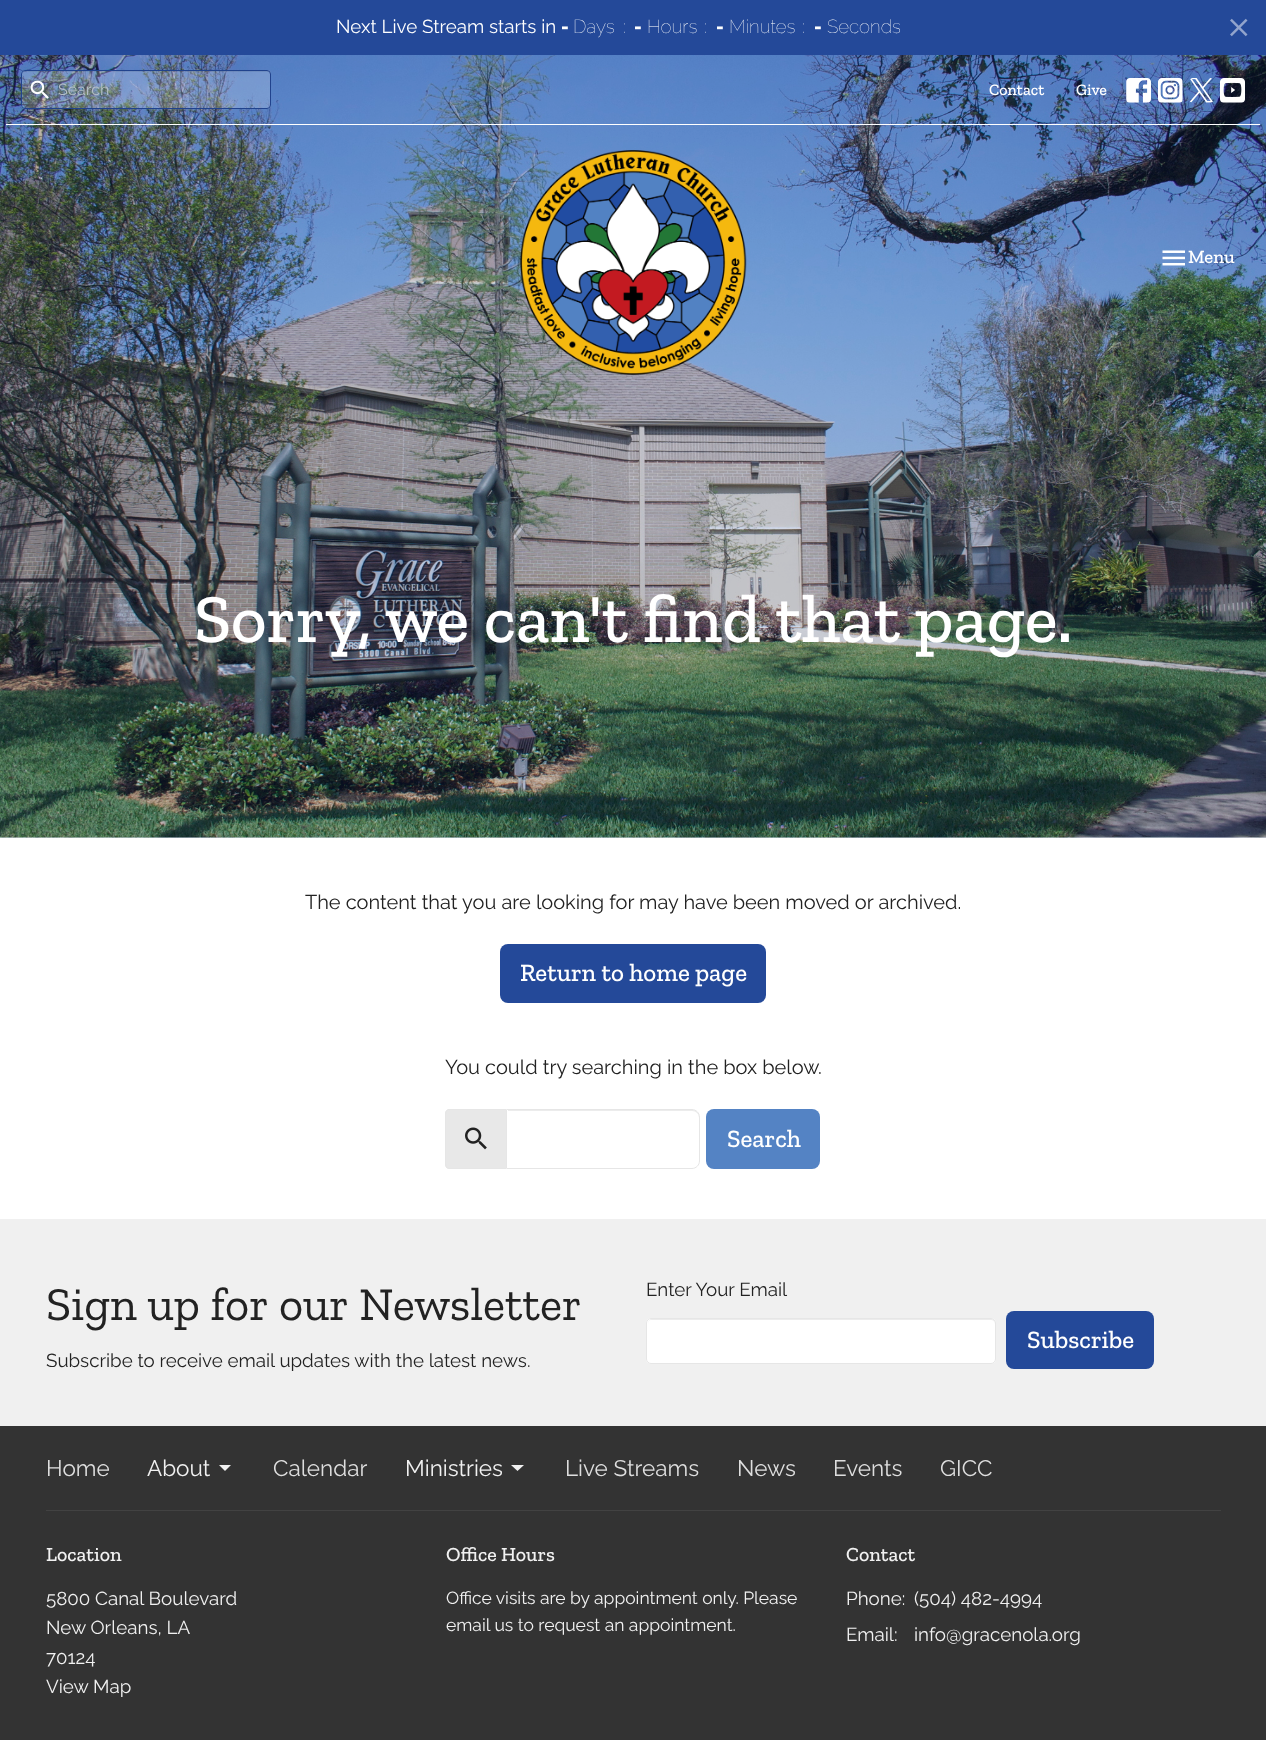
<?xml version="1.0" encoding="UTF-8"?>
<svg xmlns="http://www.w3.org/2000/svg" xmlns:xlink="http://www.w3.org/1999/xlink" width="1266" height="1740">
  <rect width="100%" height="100%" fill="#ffffff" />
  <rect y="837" width="1266" height="1" fill="#d3dbeb" />
  <rect width="1266" height="55" fill="#244999" />
  <image x="1230" y="18" width="18" height="19" xlink:href="image1.png" />
  <image x="0" y="55" width="1266" height="783" xlink:href="image9.png" />
  <rect x="6" y="124" width="1254" height="1" fill="#ffffff" />
  <rect x="21" y="70" width="250" height="39" rx="4" fill="#ffffff" fill-opacity="0.2" />
  <path d="M 25 72 h 243 c 1 0 2 2 2 3 v -1 c 0 -2 -1 -3 -2 -3 h -242 c -2 0 -3 1 -3 2 z" fill="#000000" fill-opacity="0.07" />
  <rect x="21.5" y="70.5" width="249" height="38" rx="3.5" fill="none" stroke="#21438d" />
  <image x="30" y="80" width="19" height="19" xlink:href="image2.png" />
  <image x="1126" y="78" width="25" height="25" xlink:href="image3.png" />
  <image x="1158" y="78" width="25" height="25" xlink:href="image4.png" />
  <image x="1189" y="78" width="24" height="25" xlink:href="image5.png" />
  <image x="1220" y="78" width="25" height="25" xlink:href="image6.png" />
  <image x="520" y="150" width="227" height="225" xlink:href="image7.png" />
  <image x="1162" y="250" width="23" height="16" xlink:href="image8.png" />
  <rect x="500" y="944" width="266" height="59" rx="8" fill="#244999" />
  <path d="M 450 1109 h 56 v 60 h -56 c -3 0 -5 -2 -5 -5 v -50 c 0 -3 2 -5 5 -5 z" fill="#e8e8e8" />
  <path d="M 450 1109 h 56 v 60 h -56 c -3 0 -5 -2 -5 -5 v -50 c 0 -3 2 -5 5 -5 z m 0 1 h 56 v 58 h -56 c -2 0 -4 -2 -4 -4 v -50 c 0 -2 2 -4 4 -4 z" fill="#e6e6e6" fill-rule="evenodd" />
  <image x="465" y="1127" width="22" height="23" xlink:href="image10.png" />
  <path d="M 508 1111 h 184 c 4 0 7 3 7 7 v -2 c 0 -3 -3 -6 -6 -6 h -185 z" fill="#ececec" />
  <path d="M 506.5 1109.5 h 185.5 c 4 0 7.5 3.5 7.5 7.5 v 44 c 0 4 -3.5 7.5 -7.5 7.5 h -185.5 z" fill="none" stroke="#e6e6e6" />
  <rect x="706" y="1109" width="114" height="60" rx="8" fill="#5483c4" />
  <rect y="1219" width="1266" height="207" fill="#f0f0f0" />
  <rect x="646" y="1318" width="350" height="46" rx="5" fill="#ffffff" />
  <path d="M 651 1320 h 340 c 2 0 4 2 4 4 v -1 c 0 -2 -2 -4 -4 -4 h -339 c -2 0 -4 2 -4 4 v 1 c 0 -2 1 -4 3 -4 z" fill="#ececec" />
  <rect x="646.5" y="1318.5" width="349" height="45" rx="4.5" fill="none" stroke="#e6e6e6" />
  <rect x="1006" y="1311" width="148" height="58" rx="8" fill="#244999" />
  <rect y="1426" width="1266" height="314" fill="#333333" />
  <path d="M 219 1465 l 6 6 l 6 -6 z" fill="#f1f1f1" />
  <path d="M 511 1465 l 6.5 6 l 6.5 -6 z" fill="#f1f1f1" />
  <rect x="46" y="1510" width="1175" height="1" fill="#424242" />
  <text x="336" y="33" style="font-family: Raleway; font-size: 18.75px; fill: #ffffff">Next Live Stream starts in</text>
  <text x="561" y="33" style="font-family: Raleway; font-size: 18.75px; font-weight: 800; fill: #ffffff">-</text>
  <text x="573" y="33" style="font-family: Raleway; font-size: 18.75px; font-weight: 100; fill: #ffffff">Days</text>
  <text x="623" y="33" style="font-family: Raleway; font-size: 18.75px; font-weight: 100; fill: #ffffff">:</text>
  <text x="634" y="33" style="font-family: Raleway; font-size: 18.75px; font-weight: 800; fill: #ffffff">-</text>
  <text x="647" y="33" style="font-family: Raleway; font-size: 18.75px; font-weight: 100; fill: #ffffff">Hours</text>
  <text x="704" y="33" style="font-family: Raleway; font-size: 18.75px; font-weight: 100; fill: #ffffff">:</text>
  <text x="716" y="33" style="font-family: Raleway; font-size: 18.75px; font-weight: 800; fill: #ffffff">-</text>
  <text x="729" y="33" style="font-family: Raleway; font-size: 18.75px; font-weight: 100; fill: #ffffff">Minutes</text>
  <text x="802" y="33" style="font-family: Raleway; font-size: 18.75px; font-weight: 100; fill: #ffffff">:</text>
  <text x="814" y="33" style="font-family: Raleway; font-size: 18.75px; font-weight: 800; fill: #ffffff">-</text>
  <text x="827" y="33" style="font-family: Raleway; font-size: 18.75px; font-weight: 100; fill: #ffffff">Seconds</text>
  <text x="58" y="95" style="font-family: Raleway; font-size: 16px; fill: #b4bec6">Search</text>
  <text x="989" y="95" style="font-family: Zilla Slab; font-size: 16px; font-weight: 500; fill: #ffffff">Contact</text>
  <text x="1076" y="95" style="font-family: Zilla Slab; font-size: 16px; font-weight: 500; fill: #ffffff">Give</text>
  <text x="1188" y="263" style="font-family: Zilla Slab; font-size: 18.75px; font-weight: 500; fill: #ffffff">Menu</text>
  <text x="194" y="642" style="font-family: Zilla Slab; font-size: 68.75px; font-weight: 500; fill: #ffffff">Sorry, we can't find that page.</text>
  <text x="305" y="909" style="font-family: Raleway; font-size: 20px; fill: #222222">The content that you are looking for may have been moved or archived.</text>
  <text x="520" y="981" style="font-family: Zilla Slab; font-size: 25px; font-weight: 500; fill: #ffffff">Return to home page</text>
  <text x="445" y="1074" style="font-family: Raleway; font-size: 20px; fill: #222222">You could try searching in the box below.</text>
  <text x="727" y="1147" style="font-family: Zilla Slab; font-size: 25px; font-weight: 500; fill: #ffffff">Search</text>
  <text x="46" y="1320" style="font-family: Zilla Slab; font-size: 47px; fill: #222222">Sign up for our Newsletter</text>
  <text x="46" y="1367" style="font-family: Raleway; font-size: 18.75px; fill: #222222">Subscribe to receive email updates with the latest news.</text>
  <text x="646" y="1296" style="font-family: Raleway; font-size: 18.75px; fill: #222222">Enter Your Email</text>
  <text x="1027" y="1348" style="font-family: Zilla Slab; font-size: 25px; font-weight: 500; fill: #ffffff">Subscribe</text>
  <text x="46" y="1476" style="font-family: Raleway; font-size: 22.5px; fill: #dedede">Home</text>
  <text x="147" y="1476" style="font-family: Raleway; font-size: 22.5px; fill: #f1f1f1">About</text>
  <text x="273" y="1476" style="font-family: Raleway; font-size: 22.5px; fill: #dedede">Calendar</text>
  <text x="405" y="1476" style="font-family: Raleway; font-size: 22.5px; fill: #f1f1f1">Ministries</text>
  <text x="565" y="1476" style="font-family: Raleway; font-size: 22.5px; fill: #dedede">Live Streams</text>
  <text x="737" y="1476" style="font-family: Raleway; font-size: 22.5px; fill: #dedede">News</text>
  <text x="833" y="1476" style="font-family: Raleway; font-size: 22.5px; fill: #dedede">Events</text>
  <text x="940" y="1476" style="font-family: Raleway; font-size: 22.5px; fill: #dedede">GICC</text>
  <text x="46" y="1561" style="font-family: Zilla Slab; font-size: 20px; font-weight: 500; fill: #f1f1f1">Location</text>
  <text x="46" y="1605" style="font-family: Raleway; font-size: 18.75px; fill: #f1f1f1">5800 Canal Boulevard</text>
  <text x="46" y="1634" style="font-family: Raleway; font-size: 18.75px; fill: #f1f1f1">New Orleans, LA</text>
  <text x="46" y="1664" style="font-family: Raleway; font-size: 18.75px; fill: #f1f1f1">70124</text>
  <text x="46" y="1693" style="font-family: Raleway; font-size: 18.75px; fill: #f1f1f1">View Map</text>
  <text x="446" y="1561" style="font-family: Zilla Slab; font-size: 20px; font-weight: 500; fill: #f1f1f1">Office Hours</text>
  <text x="446" y="1604" style="font-family: Raleway; font-size: 17.5px; fill: #f1f1f1">Office visits are by appointment only. Please</text>
  <text x="446" y="1631" style="font-family: Raleway; font-size: 17.5px; fill: #f1f1f1">email us to request an appointment.</text>
  <text x="846" y="1561" style="font-family: Zilla Slab; font-size: 20px; font-weight: 500; fill: #f1f1f1">Contact</text>
  <text x="846" y="1605" style="font-family: Raleway; font-size: 18.75px; fill: #f1f1f1">Phone:</text>
  <text x="914" y="1605" style="font-family: Raleway; font-size: 18.75px; fill: #f1f1f1">(504) 482-4994</text>
  <text x="846" y="1641" style="font-family: Raleway; font-size: 18.75px; fill: #f1f1f1">Email:</text>
  <text x="914" y="1641" style="font-family: Raleway; font-size: 18.75px; fill: #f1f1f1">info@gracenola.org</text>
</svg>
